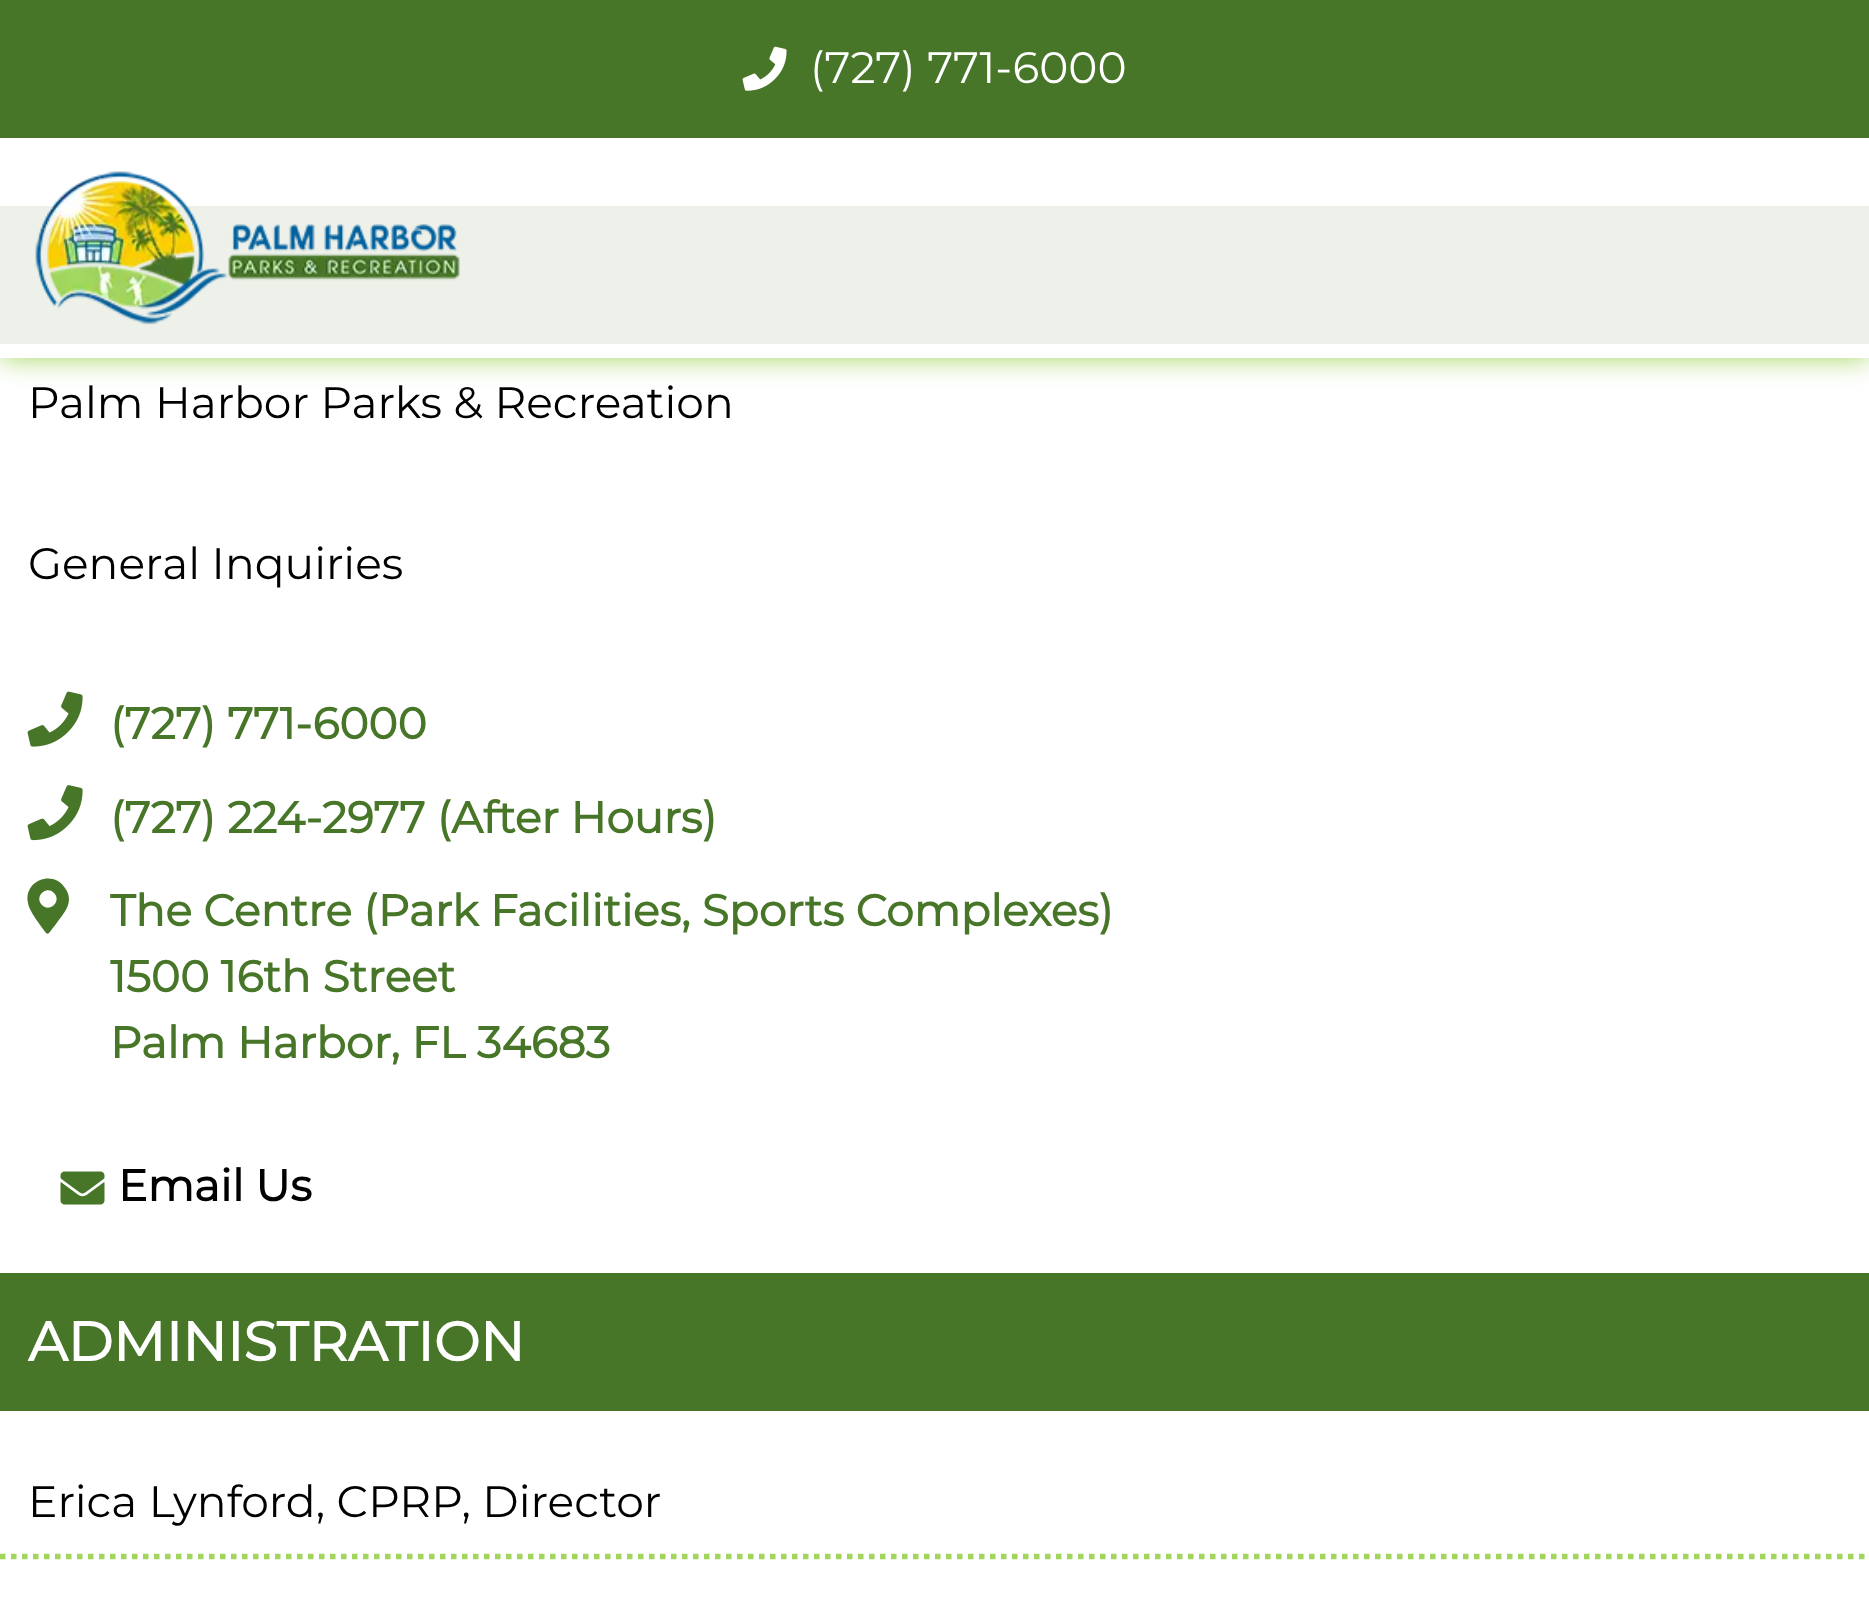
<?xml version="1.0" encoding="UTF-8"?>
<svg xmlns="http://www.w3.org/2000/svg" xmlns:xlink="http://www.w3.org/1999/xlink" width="1869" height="1599">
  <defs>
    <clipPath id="clip1"><path d="M 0 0 h 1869 v 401 h -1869 z m 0 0 h 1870 v 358 h -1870 z" clip-rule="evenodd" /></clipPath>
  </defs>
  <rect width="100%" height="100%" fill="#ffffff" />
  <rect y="206" width="1869" height="138" fill="#477628" />
  <g clip-path="url(#clip1)">
    <rect width="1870" height="358" fill="#a1d55d" filter="blur(14px)" />
  </g>
  <rect width="1869" height="138" fill="#477628" />
  <image x="742" y="46" width="45" height="45" xlink:href="image1.png" />
  <rect y="206" width="1869" height="152" fill="#ffffff" fill-opacity="0.9" />
  <image x="35" y="171" width="425" height="154" xlink:href="image2.png" />
  <image x="27" y="691" width="56" height="56" xlink:href="image3.png" />
  <image x="27" y="785" width="56" height="56" xlink:href="image4.png" />
  <path d="M 46 933 c -5 -7 -17 -22 -18 -30 c -5 -22 25 -34 37 -15 c 10 14 -1 25 -9 36 l -7 9 c -1 1 -2 1 -3 0 z m -4 -28 c 8 8 20 -4 12 -12 c -8 -8 -20 4 -12 12 z" fill="#477628" />
  <image x="60" y="1171" width="45" height="34" xlink:href="image5.png" />
  <rect y="1273" width="1869" height="138" fill="#477628" />
  <path d="M 0 1556.5 h 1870" fill="none" stroke="#a1d55d" stroke-width="5.5" stroke-dasharray="5.5 5.5" />
  <text x="810" y="83" style="font-family: Montserrat; font-size: 44px; fill: #ffffff">(727) 771-6000</text>
  <text x="28" y="418" style="font-family: Montserrat; font-size: 44px; fill: #000000">Palm Harbor Parks &amp; Recreation</text>
  <text x="28" y="579" style="font-family: Montserrat; font-size: 44px; fill: #000000">General Inquiries</text>
  <text x="110" y="739" style="font-family: Montserrat; font-size: 44px; font-weight: bold; fill: #477628">(727) 771-6000</text>
  <text x="110" y="833" style="font-family: Montserrat; font-size: 44px; font-weight: bold; fill: #477628">(727) 224-2977 (After Hours)</text>
  <text x="110" y="926" style="font-family: Montserrat; font-size: 44px; font-weight: bold; fill: #477628">The Centre (Park Facilities, Sports Complexes)</text>
  <text x="110" y="992" style="font-family: Montserrat; font-size: 44px; font-weight: bold; fill: #477628">1500 16th Street</text>
  <text x="110" y="1058" style="font-family: Montserrat; font-size: 44px; font-weight: bold; fill: #477628">Palm Harbor, FL 34683</text>
  <text x="118" y="1201" style="font-family: Montserrat; font-size: 44px; font-weight: bold; fill: #000000">Email Us</text>
  <text x="28" y="1361" style="font-family: Montserrat; font-size: 55px; font-weight: bold; fill: #ffffff">ADMINISTRATION</text>
  <text x="28" y="1517" style="font-family: Montserrat; font-size: 44px; fill: #000000">Erica Lynford, CPRP, Director</text>
</svg>
